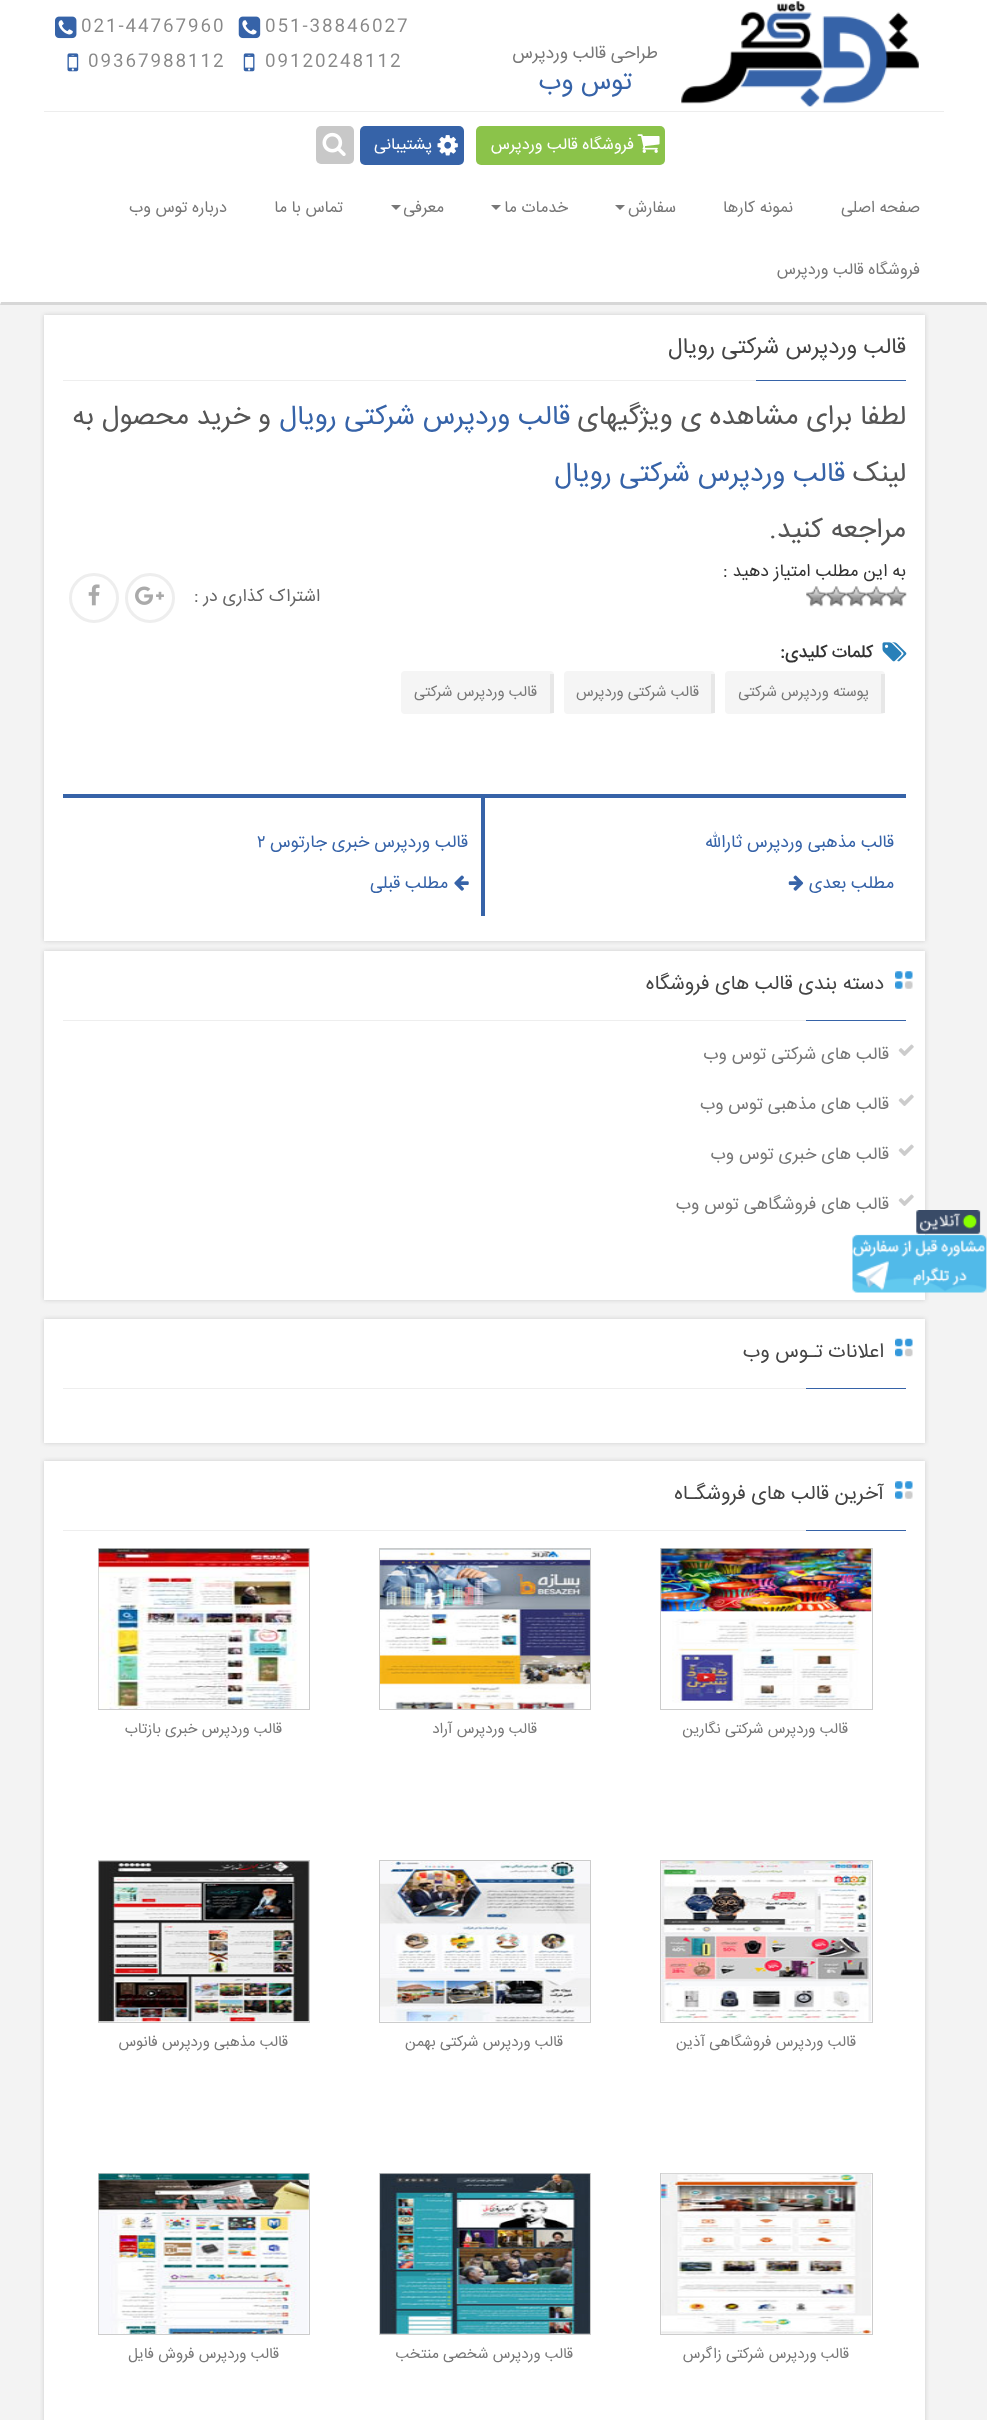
<?xml version="1.0" encoding="UTF-8"?>
<svg xmlns="http://www.w3.org/2000/svg" xmlns:xlink="http://www.w3.org/1999/xlink" width="987" height="2420">
  <rect width="100%" height="100%" fill="#f3f3f3" />
  <rect width="987" height="305" fill="#ffffff" />
  <rect x="44" y="111" width="900" height="1" fill="#ededed" />
  <image x="681" y="1" width="238" height="106" xlink:href="image1.png" />
  <image x="238" y="16" width="23" height="23" xlink:href="image2.png" />
  <image x="55" y="16" width="22" height="23" xlink:href="image3.png" />
  <image x="243" y="53" width="12" height="19" xlink:href="image4.png" />
  <image x="67" y="53" width="12" height="19" xlink:href="image5.png" />
  <path d="M 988 305 h -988 l 1 -3 h 985 z" fill="#d7d7d7" />
  <rect x="476" y="126" width="189" height="39" rx="5" fill="#8bc34a" />
  <image x="637" y="134" width="23" height="19" xlink:href="image6.png" />
  <rect x="360" y="126" width="104" height="39" rx="5" fill="#3663a8" />
  <image x="437" y="135" width="21" height="21" xlink:href="image7.png" />
  <rect x="316" y="126" width="38" height="38" rx="5" fill="#c8c8c8" />
  <image x="322" y="132" width="24" height="24" xlink:href="image8.png" />
  <path d="M 615 205 h 10 l -5 5 z" fill="#777777" />
  <path d="M 491 205 h 10 l -5 5 z" fill="#777777" />
  <path d="M 391 205 h 10 l -5 5 z" fill="#777777" />
  <rect x="44" y="315" width="881" height="626" fill="#cccccc" filter="blur(2px)" />
  <rect x="44" y="315" width="881" height="626" fill="#ffffff" />
  <rect x="63" y="380" width="693" height="1" fill="#eeeeee" />
  <rect x="756" y="380" width="150" height="1" fill="#3663a8" />
  <image x="886" y="586" width="21" height="21" xlink:href="image10.png" />
  <image x="866" y="586" width="21" height="21" xlink:href="image11.png" />
  <image x="846" y="586" width="21" height="21" xlink:href="image11.png" />
  <image x="826" y="586" width="21" height="21" xlink:href="image11.png" />
  <image x="806" y="586" width="21" height="21" xlink:href="image11.png" />
  <circle cx="150" cy="598" r="23.5" fill="none" stroke="#eeeeee" stroke-width="3" />
  <image x="135" y="586" width="29" height="19" xlink:href="image12.png" />
  <circle cx="94" cy="598" r="23.5" fill="none" stroke="#eeeeee" stroke-width="3" />
  <image x="88" y="584" width="12" height="22" xlink:href="image13.png" />
  <image x="882" y="642" width="25" height="20" xlink:href="image14.png" />
  <rect x="725" y="671" width="160" height="43" rx="4" fill="#f5f5f5" />
  <rect x="881" y="674" width="4" height="39" fill="#e7e7e7" />
  <rect x="564" y="671" width="151" height="43" rx="4" fill="#f5f5f5" />
  <rect x="711" y="674" width="4" height="39" fill="#e7e7e7" />
  <rect x="401" y="671" width="153" height="43" rx="4" fill="#f5f5f5" />
  <rect x="550" y="674" width="4" height="39" fill="#e7e7e7" />
  <rect x="63" y="794" width="843" height="4" fill="#3663a8" />
  <image x="788" y="875" width="16" height="16" xlink:href="image15.png" />
  <rect x="481" y="798" width="4" height="118" fill="#3663a8" />
  <image x="454" y="875" width="15" height="16" xlink:href="image16.png" />
  <rect x="44" y="951" width="881" height="349" fill="#cccccc" filter="blur(2px)" />
  <rect x="44" y="951" width="881" height="349" fill="#ffffff" />
  <rect x="63" y="1020" width="743" height="1" fill="#eeeeee" />
  <image x="895" y="971" width="18" height="18" xlink:href="image17.png" />
  <rect x="806" y="1020" width="100" height="1" fill="#3663a8" />
  <image x="898" y="1044" width="16" height="12" xlink:href="image18.png" />
  <image x="898" y="1094" width="16" height="12" xlink:href="image18.png" />
  <image x="898" y="1144" width="16" height="12" xlink:href="image18.png" />
  <image x="898" y="1194" width="16" height="12" xlink:href="image18.png" />
  <rect x="44" y="1319" width="881" height="124" fill="#cccccc" filter="blur(2px)" />
  <rect x="44" y="1319" width="881" height="124" fill="#ffffff" />
  <rect x="63" y="1388" width="743" height="1" fill="#eeeeee" />
  <image x="895" y="1338" width="18" height="19" xlink:href="image19.png" />
  <rect x="806" y="1388" width="100" height="1" fill="#3663a8" />
  <rect x="44" y="1461" width="881" height="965" fill="#cccccc" filter="blur(2px)" />
  <rect x="44" y="1461" width="881" height="959" fill="#ffffff" />
  <rect x="63" y="1530" width="743" height="1" fill="#eeeeee" />
  <image x="895" y="1481" width="18" height="18" xlink:href="image17.png" />
  <rect x="806" y="1530" width="100" height="1" fill="#3663a8" />
  <rect x="660.5" y="1548.5" width="212" height="161" fill="none" stroke="#cccccc" />
  <image x="661" y="1548" width="211" height="161" xlink:href="image20.png" />
  <rect x="379.5" y="1548.5" width="211" height="161" fill="none" stroke="#cccccc" />
  <image x="380" y="1548" width="210" height="161" xlink:href="image21.png" />
  <rect x="98.5" y="1548.5" width="211" height="161" fill="none" stroke="#cccccc" />
  <image x="98" y="1548" width="211" height="161" xlink:href="image22.png" />
  <rect x="660.5" y="1860.5" width="212" height="162" fill="none" stroke="#cccccc" />
  <image x="661" y="1861" width="211" height="161" xlink:href="image23.png" />
  <rect x="379.5" y="1860.5" width="211" height="162" fill="none" stroke="#cccccc" />
  <image x="380" y="1861" width="210" height="161" xlink:href="image24.png" />
  <rect x="98.5" y="1860.5" width="211" height="162" fill="none" stroke="#cccccc" />
  <image x="98" y="1861" width="211" height="161" xlink:href="image25.png" />
  <rect x="660.5" y="2173.5" width="212" height="161" fill="none" stroke="#cccccc" />
  <image x="661" y="2173" width="211" height="161" xlink:href="image26.png" />
  <rect x="379.5" y="2173.5" width="211" height="161" fill="none" stroke="#cccccc" />
  <image x="380" y="2173" width="210" height="161" xlink:href="image27.png" />
  <rect x="98.5" y="2173.5" width="211" height="161" fill="none" stroke="#cccccc" />
  <image x="98" y="2173" width="211" height="161" xlink:href="image28.png" />
  <text x="658" y="58" style="font-family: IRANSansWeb; font-size: 17.5px; direction: rtl; fill: #777777">طراحی قالب وردپرس</text>
  <text x="632" y="89" style="font-family: IRANSansWeb; font-size: 26px; direction: rtl; fill: #3663a8">توس وب</text>
  <text x="265" y="31" style="font-family: IRANSansWeb; font-size: 17.5px; letter-spacing: 1.9px; fill: #888888">051-38846027</text>
  <text x="81" y="31" style="font-family: IRANSansWeb; font-size: 17.5px; letter-spacing: 1.9px; fill: #888888">021-44767960</text>
  <text x="265" y="66" style="font-family: IRANSansWeb; font-size: 17.5px; letter-spacing: 1.9px; fill: #888888">09120248112</text>
  <text x="88" y="66" style="font-family: IRANSansWeb; font-size: 17.5px; letter-spacing: 1.9px; fill: #888888">09367988112</text>
  <text x="634" y="149" style="font-family: IRANSansWeb; font-size: 16.25px; direction: rtl; fill: #ffffff">فروشگاه قالب وردپرس</text>
  <text x="432" y="149" style="font-family: IRANSansWeb; font-size: 16.25px; direction: rtl; fill: #ffffff">پشتیبانی</text>
  <text x="920" y="212" style="font-family: IRANSansWeb; font-size: 16.25px; direction: rtl; fill: #777777">صفحه اصلی</text>
  <text x="793" y="212" style="font-family: IRANSansWeb; font-size: 16.25px; direction: rtl; fill: #777777">نمونه کارها</text>
  <text x="676" y="212" style="font-family: IRANSansWeb; font-size: 16.25px; direction: rtl; fill: #777777">سفارش</text>
  <text x="568" y="212" style="font-family: IRANSansWeb; font-size: 16.25px; direction: rtl; fill: #777777">خدمات ما</text>
  <text x="444" y="212" style="font-family: IRANSansWeb; font-size: 16.25px; direction: rtl; fill: #777777">معرفی</text>
  <text x="343" y="212" style="font-family: IRANSansWeb; font-size: 16.25px; direction: rtl; fill: #777777">تماس با ما</text>
  <text x="227" y="212" style="font-family: IRANSansWeb; font-size: 16.25px; direction: rtl; fill: #777777">درباره توس وب</text>
  <text x="920" y="274" style="font-family: IRANSansWeb; font-size: 16.25px; direction: rtl; fill: #777777">فروشگاه قالب وردپرس</text>
  <text x="906" y="353" style="font-family: IRANSansWeb; font-size: 22.5px; direction: rtl; fill: #444444">قالب وردپرس شرکتی رویال</text>
  <text x="906" y="424" style="font-family: IRANSansWeb; font-size: 27.5px; direction: rtl; fill: #555555">لطفا برای مشاهده ی ویژگیهای</text>
  <text x="570" y="424" style="font-family: IRANSansWeb; font-size: 27.5px; direction: rtl; fill: #3663a8">قالب وردپرس شرکتی رویال</text>
  <text x="271" y="424" style="font-family: IRANSansWeb; font-size: 27.5px; direction: rtl; fill: #555555">و خرید محصول به</text>
  <text x="906" y="481" style="font-family: IRANSansWeb; font-size: 27.5px; direction: rtl; fill: #555555">لینک</text>
  <text x="845" y="481" style="font-family: IRANSansWeb; font-size: 27.5px; direction: rtl; fill: #3663a8">قالب وردپرس شرکتی رویال</text>
  <text x="906" y="537" style="font-family: IRANSansWeb; font-size: 27.5px; direction: rtl; fill: #555555">مراجعه کنید.</text>
  <text x="906" y="576" style="font-family: IRANSansWeb; font-size: 17.5px; direction: rtl; fill: #333333">به این مطلب امتیاز دهید :</text>
  <text x="320" y="601" style="font-family: IRANSansWeb; font-size: 17.5px; direction: rtl; fill: #666666">اشتراک کذاری در :</text>
  <text x="873" y="657" style="font-family: IRANSansWeb; font-size: 17.5px; font-weight: 500; direction: rtl; fill: #333333">کلمات کلیدی:</text>
  <text x="869" y="696" style="font-family: IRANSansWeb; font-size: 15px; direction: rtl; fill: #777777">پوسته وردپرس شرکتی</text>
  <text x="699" y="696" style="font-family: IRANSansWeb; font-size: 15px; direction: rtl; fill: #777777">قالب شرکتی وردپرس</text>
  <text x="537" y="696" style="font-family: IRANSansWeb; font-size: 15px; direction: rtl; fill: #777777">قالب وردپرس شرکتی</text>
  <text x="894" y="847" style="font-family: IRANSansWeb; font-size: 17.5px; direction: rtl; fill: #3663a8">قالب مذهبی وردپرس ثارالله</text>
  <text x="894" y="888" style="font-family: IRANSansWeb; font-size: 17.5px; direction: rtl; fill: #3663a8">مطلب بعدی</text>
  <text x="468" y="847" style="font-family: IRANSansWeb; font-size: 17.5px; direction: rtl; fill: #3663a8">قالب وردپرس خبری جارتوس</text>
  <text x="257" y="847" style="font-family: IRANSansWeb; font-size: 17.5px; fill: #3663a8">۲</text>
  <text x="448" y="888" style="font-family: IRANSansWeb; font-size: 17.5px; direction: rtl; fill: #3663a8">مطلب قبلی</text>
  <text x="884" y="989" style="font-family: IRANSansWeb; font-size: 20px; direction: rtl; fill: #444444">دسته بندی قالب های فروشگاه</text>
  <text x="889" y="1059" style="font-family: IRANSansWeb; font-size: 17.5px; direction: rtl; fill: #777777">قالب های شرکتی توس وب</text>
  <text x="889" y="1109" style="font-family: IRANSansWeb; font-size: 17.5px; direction: rtl; fill: #777777">قالب های مذهبی توس وب</text>
  <text x="889" y="1159" style="font-family: IRANSansWeb; font-size: 17.5px; direction: rtl; fill: #777777">قالب های خبری توس وب</text>
  <text x="889" y="1209" style="font-family: IRANSansWeb; font-size: 17.5px; direction: rtl; fill: #777777">قالب های فروشگاهی توس وب</text>
  <image x="852" y="1210" width="135" height="83" xlink:href="image9.png" />
  <text x="884" y="1357" style="font-family: IRANSansWeb; font-size: 20px; direction: rtl; fill: #444444">اعلانات تـوس وب</text>
  <text x="884" y="1499" style="font-family: IRANSansWeb; font-size: 20px; direction: rtl; fill: #444444">آخرین قالب های فروشگـاه</text>
  <text x="848" y="1733" style="font-family: IRANSansWeb; font-size: 15px; direction: rtl; fill: #777777">قالب وردپرس شرکتی نگارین</text>
  <text x="537" y="1733" style="font-family: IRANSansWeb; font-size: 15px; direction: rtl; fill: #777777">قالب وردپرس آراد</text>
  <text x="282" y="1733" style="font-family: IRANSansWeb; font-size: 15px; direction: rtl; fill: #777777">قالب وردپرس خبری بازتاب</text>
  <text x="856" y="2046" style="font-family: IRANSansWeb; font-size: 15px; direction: rtl; fill: #777777">قالب وردپرس فروشگاهی آذین</text>
  <text x="563" y="2046" style="font-family: IRANSansWeb; font-size: 15px; direction: rtl; fill: #777777">قالب وردپرس شرکتی بهمن</text>
  <text x="288" y="2046" style="font-family: IRANSansWeb; font-size: 15px; direction: rtl; fill: #777777">قالب مذهبی وردپرس فانوس</text>
  <text x="849" y="2358" style="font-family: IRANSansWeb; font-size: 15px; direction: rtl; fill: #777777">قالب وردپرس شرکتی زاگرس</text>
  <text x="573" y="2358" style="font-family: IRANSansWeb; font-size: 15px; direction: rtl; fill: #777777">قالب وردپرس شخصی منتخب</text>
  <text x="279" y="2358" style="font-family: IRANSansWeb; font-size: 15px; direction: rtl; fill: #777777">قالب وردپرس فروش فایل</text>
</svg>
